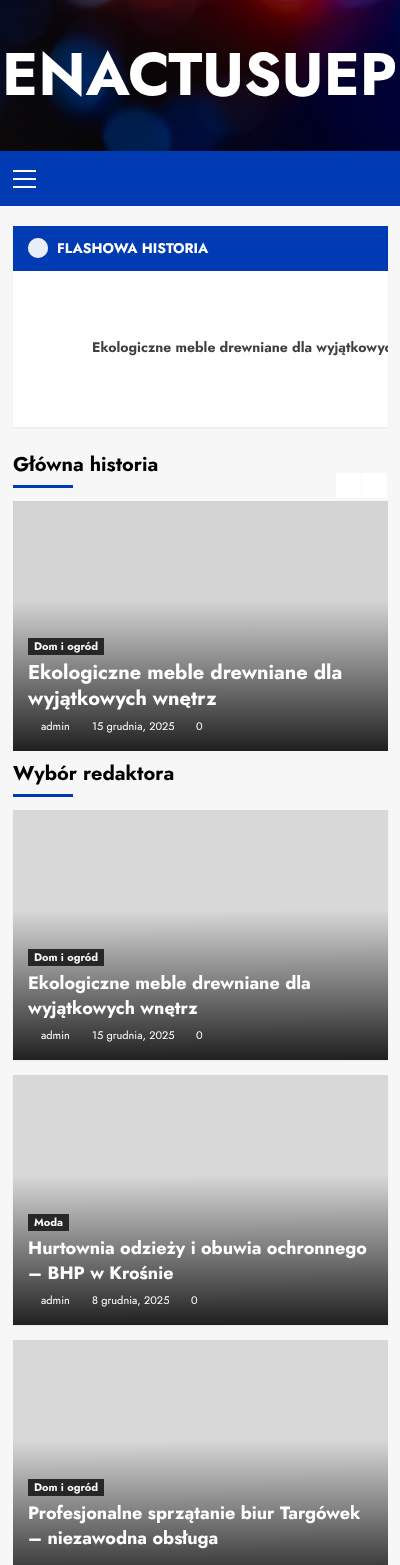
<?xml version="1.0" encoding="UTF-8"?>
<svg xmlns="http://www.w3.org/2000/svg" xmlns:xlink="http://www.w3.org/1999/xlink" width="400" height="1565">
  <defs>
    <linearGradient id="g1" gradientUnits="userSpaceOnUse" x1="201" y1="501" x2="201" y2="751"><stop offset="0.4" stop-color="#d4d4d4" /><stop offset="1" stop-color="#202020" /></linearGradient>
    <linearGradient id="g2" gradientUnits="userSpaceOnUse" x1="201" y1="501" x2="201" y2="751"><stop offset="0.4" stop-color="#292929" /><stop offset="1" stop-color="#222222" /></linearGradient>
    <linearGradient id="g3" gradientUnits="userSpaceOnUse" x1="200" y1="810" x2="201" y2="1060"><stop offset="0.4" stop-color="#d8d8d8" /><stop offset="1" stop-color="#202020" /></linearGradient>
    <linearGradient id="g4" gradientUnits="userSpaceOnUse" x1="200" y1="810" x2="201" y2="1060"><stop offset="0.4" stop-color="#292929" /><stop offset="1" stop-color="#222222" /></linearGradient>
    <linearGradient id="g5" gradientUnits="userSpaceOnUse" x1="200" y1="1075" x2="201" y2="1325"><stop offset="0.4" stop-color="#d8d8d8" /><stop offset="1" stop-color="#202020" /></linearGradient>
    <linearGradient id="g6" gradientUnits="userSpaceOnUse" x1="200" y1="1075" x2="201" y2="1325"><stop offset="0.4" stop-color="#292929" /><stop offset="1" stop-color="#222222" /></linearGradient>
    <linearGradient id="g7" gradientUnits="userSpaceOnUse" x1="200" y1="1340" x2="201" y2="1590"><stop offset="0.4" stop-color="#d8d8d8" /><stop offset="1" stop-color="#202020" /></linearGradient>
    <linearGradient id="g8" gradientUnits="userSpaceOnUse" x1="200" y1="1340" x2="201" y2="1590"><stop offset="0.4" stop-color="#292929" /><stop offset="1" stop-color="#222222" /></linearGradient>
    <clipPath id="clip1"><rect x="13" y="271" width="375" height="156" /></clipPath>
  </defs>
  <rect width="100%" height="100%" fill="#f7f7f7" />
  <image x="0" y="0" width="400" height="151" xlink:href="image1.png" />
  <rect y="151" width="400" height="55" fill="#003bb3" />
  <rect x="13" y="178" width="23" height="2" fill="#ffffff" />
  <rect x="13" y="170" width="23" height="2" fill="#ffffff" />
  <rect x="13" y="186" width="23" height="2" fill="#ffffff" />
  <rect x="13" y="227" width="375" height="201" fill="#000000" fill-opacity="0.05" filter="blur(1px)" />
  <rect x="13" y="271" width="375" height="156" fill="#ffffff" />
  <rect x="13" y="226" width="375" height="45" fill="#003bb3" />
  <circle cx="38" cy="248" r="10" fill="#b3c4e8" />
  <circle cx="38" cy="248" r="10" fill="#ffffff" fill-opacity="0.7" />
  <rect x="13" y="485" width="60" height="3" fill="#003bb3" />
  <rect x="336" y="473" width="25" height="25" fill="#ffffff" />
  <rect x="362" y="473" width="25" height="25" fill="#ffffff" />
  <rect x="13" y="501" width="375" height="250" fill="url(#g1)" />
  <rect x="28" y="638" width="76" height="17" fill="url(#g2)" />
  <rect x="13" y="794" width="60" height="3" fill="#003bb3" />
  <rect x="13" y="811" width="375" height="250" fill="#000000" fill-opacity="0.05" filter="blur(1px)" />
  <rect x="13" y="810" width="375" height="250" fill="url(#g3)" />
  <rect x="28" y="949" width="76" height="17" fill="url(#g4)" />
  <rect x="13" y="1076" width="375" height="250" fill="#000000" fill-opacity="0.05" filter="blur(1px)" />
  <rect x="13" y="1075" width="375" height="250" fill="url(#g5)" />
  <rect x="28" y="1214" width="41" height="17" fill="url(#g6)" />
  <rect x="13" y="1340" width="375" height="225" fill="url(#g7)" />
  <rect x="28" y="1479" width="76" height="17" fill="url(#g8)" />
  <text x="2" y="95" style="font-family: Jost; font-size: 60px; font-weight: bold; fill: #ffffff">ENACTUSUEP</text>
  <text x="57" y="253" style="font-family: Jost; font-size: 14px; font-weight: bold; fill: #ffffff">FLASHOWA HISTORIA</text>
  <g clip-path="url(#clip1)">
    <text x="92" y="352" style="font-family: Jost; font-size: 14px; font-weight: bold; fill: #404040">Ekologiczne meble drewniane dla wyjątkowyc</text>
  </g>
  <text x="13" y="471" style="font-family: Jost; font-size: 20px; font-weight: bold; fill: #000000">Główna historia</text>
  <text x="34" y="650" style="font-family: Jost; font-size: 11px; font-weight: bold; fill: #f6f6f6">Dom i ogród</text>
  <text x="28" y="679" style="font-family: Jost; font-size: 20px; font-weight: bold; fill: #ffffff">Ekologiczne meble drewniane dla</text>
  <text x="28" y="705" style="font-family: Jost; font-size: 20px; font-weight: bold; fill: #ffffff">wyjątkowych wnętrz</text>
  <text x="41" y="730" style="font-family: Jost; font-size: 11px; fill: #ffffff">admin</text>
  <text x="92" y="730" style="font-family: Jost; font-size: 11px; fill: #ffffff">15 grudnia, 2025</text>
  <text x="196" y="730" style="font-family: Jost; font-size: 11px; fill: #ffffff">0</text>
  <text x="13" y="780" style="font-family: Jost; font-size: 20px; font-weight: bold; fill: #000000">Wybór redaktora</text>
  <text x="34" y="961" style="font-family: Jost; font-size: 11px; font-weight: bold; fill: #f6f6f6">Dom i ogród</text>
  <text x="28" y="989" style="font-family: Jost; font-size: 18px; font-weight: bold; fill: #ffffff">Ekologiczne meble drewniane dla</text>
  <text x="28" y="1014" style="font-family: Jost; font-size: 18px; font-weight: bold; fill: #ffffff">wyjątkowych wnętrz</text>
  <text x="41" y="1039" style="font-family: Jost; font-size: 11px; fill: #ffffff">admin</text>
  <text x="92" y="1039" style="font-family: Jost; font-size: 11px; fill: #ffffff">15 grudnia, 2025</text>
  <text x="196" y="1039" style="font-family: Jost; font-size: 11px; fill: #ffffff">0</text>
  <text x="34" y="1226" style="font-family: Jost; font-size: 11px; font-weight: bold; fill: #f6f6f6">Moda</text>
  <text x="28" y="1254" style="font-family: Jost; font-size: 18px; font-weight: bold; fill: #ffffff">Hurtownia odzieży i obuwia ochronnego</text>
  <text x="28" y="1279" style="font-family: Jost; font-size: 18px; font-weight: bold; fill: #ffffff">– BHP w Krośnie</text>
  <text x="41" y="1304" style="font-family: Jost; font-size: 11px; fill: #ffffff">admin</text>
  <text x="92" y="1304" style="font-family: Jost; font-size: 11px; fill: #ffffff">8 grudnia, 2025</text>
  <text x="191" y="1304" style="font-family: Jost; font-size: 11px; fill: #ffffff">0</text>
  <text x="34" y="1491" style="font-family: Jost; font-size: 11px; font-weight: bold; fill: #f6f6f6">Dom i ogród</text>
  <text x="28" y="1519" style="font-family: Jost; font-size: 18px; font-weight: bold; fill: #ffffff">Profesjonalne sprzątanie biur Targówek</text>
  <text x="28" y="1544" style="font-family: Jost; font-size: 18px; font-weight: bold; fill: #ffffff">– niezawodna obsługa</text>
</svg>
